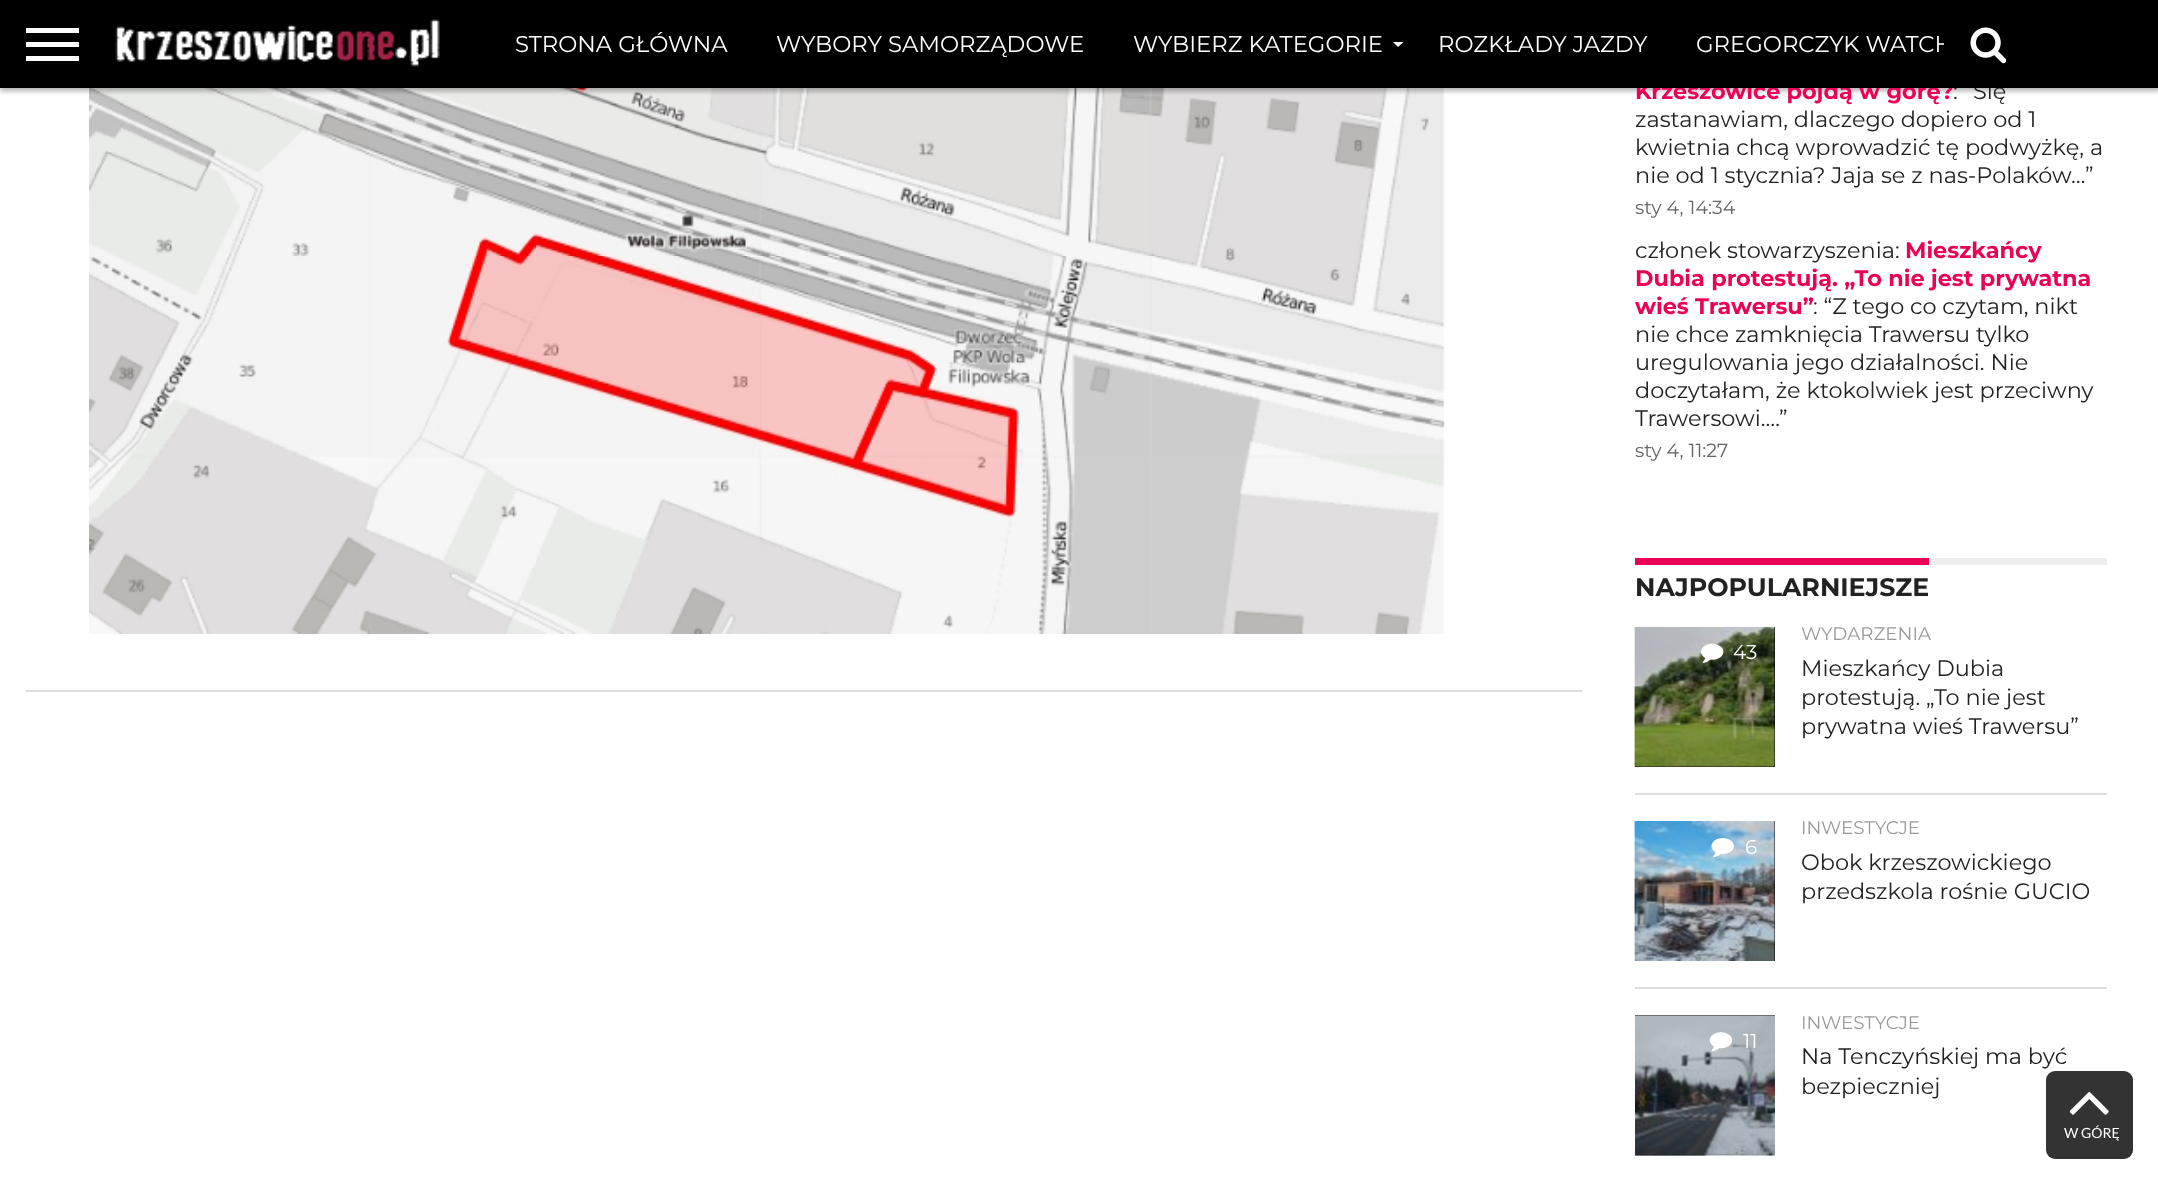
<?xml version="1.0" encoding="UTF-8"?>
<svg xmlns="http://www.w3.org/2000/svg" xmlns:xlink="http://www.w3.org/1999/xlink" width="2158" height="1184">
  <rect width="100%" height="100%" fill="#ffffff" />
  <image x="89" y="88" width="1356" height="546" xlink:href="image3.png" />
  <rect y="4" width="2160" height="87" fill="#000000" fill-opacity="0.3" filter="blur(2.5px)" />
  <rect x="26" y="690" width="1556" height="2" fill="#dddddd" />
  <rect x="1929" y="558" width="178" height="7" fill="#eeeeee" />
  <rect x="1635" y="558" width="294" height="7" fill="#eb0254" />
  <rect x="1635" y="627" width="140" height="140" fill="#000000" />
  <image x="1634" y="626" width="141" height="141" xlink:href="image4.png" />
  <image x="1701" y="643" width="23" height="20" xlink:href="image5.png" />
  <rect x="1635" y="793" width="472" height="2" fill="#dddddd" />
  <rect x="1635" y="821" width="140" height="140" fill="#000000" />
  <image x="1634" y="821" width="141" height="140" xlink:href="image6.png" />
  <image x="1711" y="838" width="23" height="20" xlink:href="image7.png" />
  <rect x="1635" y="987" width="472" height="2" fill="#dddddd" />
  <rect x="1635" y="1015" width="140" height="140" fill="#000000" />
  <image x="1635" y="1015" width="140" height="141" xlink:href="image8.png" />
  <image x="1709" y="1032" width="24" height="20" xlink:href="image9.png" />
  <rect x="2046" y="1071" width="87" height="88" rx="9" fill="#333333" />
  <image x="2069" y="1092" width="40" height="23" xlink:href="image10.png" />
  <text x="1635" y="99" style="font-family: Montserrat; font-size: 22.4px; font-weight: bold; fill: #eb0254">Krzeszowice pójdą w górę?</text>
  <rect width="1944" height="88" fill="#000000" />
  <text x="1696" y="52" style="font-family: Montserrat; font-size: 22.75px; fill: #ffffff">GREGORCZYK WATCH</text>
  <text x="1438" y="52" style="font-family: Montserrat; font-size: 22.75px; fill: #ffffff">ROZKŁADY JAZDY</text>
  <path d="M 1393 42 h 10.5 l -5.5 5 z" fill="#ffffff" />
  <text x="1133" y="52" style="font-family: Montserrat; font-size: 22.75px; fill: #ffffff">WYBIERZ KATEGORIE</text>
  <text x="776" y="52" style="font-family: Montserrat; font-size: 22.75px; fill: #ffffff">WYBORY SAMORZĄDOWE</text>
  <text x="515" y="52" style="font-family: Montserrat; font-size: 22.75px; fill: #ffffff">STRONA GŁÓWNA</text>
  <rect x="26" y="56" width="53" height="5" fill="#ffffff" />
  <rect x="26" y="42" width="53" height="5" fill="#ffffff" />
  <rect x="26" y="28" width="53" height="5" fill="#ffffff" />
  <image x="115" y="19" width="325" height="48" xlink:href="image1.png" />
  <text x="1953" y="99" style="font-family: Montserrat; font-size: 22.4px; fill: #222222">:</text>
  <text x="1973" y="99" style="font-family: Montserrat; font-size: 22.4px; fill: #222222">Się</text>
  <rect x="1944" width="214" height="88" fill="#000000" />
  <image x="1970" y="27" width="37" height="37" xlink:href="image2.png" />
  <text x="1635" y="127" style="font-family: Montserrat; font-size: 22.4px; fill: #222222">zastanawiam, dlaczego dopiero od 1</text>
  <text x="1635" y="155" style="font-family: Montserrat; font-size: 22.4px; fill: #222222">kwietnia chcą wprowadzić tę podwyżkę, a</text>
  <text x="1635" y="183" style="font-family: Montserrat; font-size: 22.4px; fill: #222222">nie od 1 stycznia? Jaja se z nas-Polaków…</text>
  <text x="2085" y="183" style="font-family: Montserrat; font-size: 22.4px; fill: #222222">”</text>
  <text x="1635" y="214" style="font-family: Montserrat; font-size: 19px; fill: #646464">sty 4, 14:34</text>
  <text x="1635" y="258" style="font-family: Montserrat; font-size: 22.4px; fill: #222222">członek stowarzyszenia:</text>
  <text x="1905" y="258" style="font-family: Montserrat; font-size: 22.4px; font-weight: bold; fill: #eb0254">Mieszkańcy</text>
  <text x="1635" y="286" style="font-family: Montserrat; font-size: 22.4px; font-weight: bold; fill: #eb0254">Dubia protestują. „To nie jest prywatna</text>
  <text x="1635" y="314" style="font-family: Montserrat; font-size: 22.4px; font-weight: bold; fill: #eb0254">wieś Trawersu”</text>
  <text x="1813" y="314" style="font-family: Montserrat; font-size: 22.4px; fill: #222222">: “Z tego co czytam, nikt</text>
  <text x="1635" y="342" style="font-family: Montserrat; font-size: 22.4px; fill: #222222">nie chce zamknięcia Trawersu tylko</text>
  <text x="1635" y="370" style="font-family: Montserrat; font-size: 22.4px; fill: #222222">uregulowania jego działalności. Nie</text>
  <text x="1635" y="398" style="font-family: Montserrat; font-size: 22.4px; fill: #222222">doczytałam, że ktokolwiek jest przeciwny</text>
  <text x="1635" y="426" style="font-family: Montserrat; font-size: 22.4px; fill: #222222">Trawersowi.…</text>
  <text x="1779" y="426" style="font-family: Montserrat; font-size: 22.4px; fill: #222222">”</text>
  <text x="1635" y="457" style="font-family: Montserrat; font-size: 19px; fill: #646464">sty 4, 11:27</text>
  <text x="1635" y="596" style="font-family: Montserrat; font-size: 25.25px; font-weight: bold; fill: #222222">NAJPOPULARNIEJSZE</text>
  <text x="1733" y="659" style="font-family: Montserrat; font-size: 20px; fill: #ffffff">43</text>
  <text x="1801" y="640" style="font-family: Montserrat; font-size: 18.25px; fill: #999999">WYDARZENIA</text>
  <text x="1801" y="676" style="font-family: Montserrat; font-size: 22.4px; fill: #222222">Mieszkańcy Dubia</text>
  <text x="1801" y="705" style="font-family: Montserrat; font-size: 22.4px; fill: #222222">protestują. „To nie jest</text>
  <text x="1801" y="734" style="font-family: Montserrat; font-size: 22.4px; fill: #222222">prywatna wieś Trawersu”</text>
  <text x="1745" y="854" style="font-family: Montserrat; font-size: 20px; fill: #ffffff">6</text>
  <text x="1801" y="834" style="font-family: Montserrat; font-size: 18.25px; fill: #999999">INWESTYCJE</text>
  <text x="1801" y="870" style="font-family: Montserrat; font-size: 22.4px; fill: #222222">Obok krzeszowickiego</text>
  <text x="1801" y="899" style="font-family: Montserrat; font-size: 22.4px; fill: #222222">przedszkola rośnie GUCIO</text>
  <text x="1743" y="1048" style="font-family: Montserrat; font-size: 20px; fill: #ffffff">11</text>
  <text x="1801" y="1029" style="font-family: Montserrat; font-size: 18.25px; fill: #999999">INWESTYCJE</text>
  <text x="1801" y="1064" style="font-family: Montserrat; font-size: 22.4px; fill: #222222">Na Tenczyńskiej ma być</text>
  <text x="1801" y="1094" style="font-family: Montserrat; font-size: 22.4px; fill: #222222">bezpieczniej</text>
  <text x="2064" y="1138" style="font-family: Lato; font-size: 14px; fill: #ffffff">W GÓRĘ</text>
</svg>
